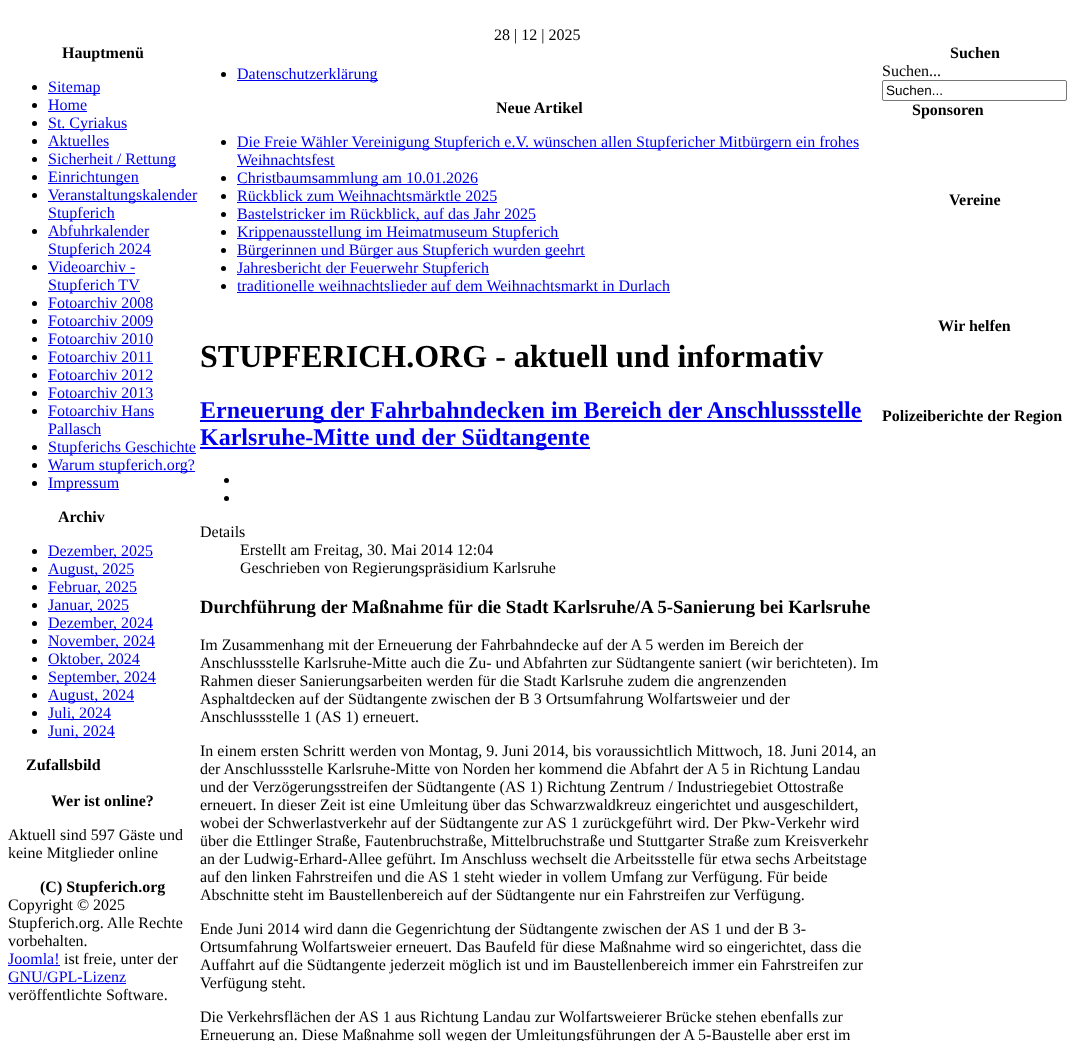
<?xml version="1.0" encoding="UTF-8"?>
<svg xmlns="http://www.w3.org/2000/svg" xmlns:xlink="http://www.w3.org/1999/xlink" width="1075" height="1041">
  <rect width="100%" height="100%" fill="#ffffff" />
  <circle cx="34.5" cy="87.5" r="2.5" fill="#000000" />
  <rect x="48" y="93" width="52" height="1" fill="#0000ee" />
  <circle cx="34.5" cy="105.5" r="2.5" fill="#000000" />
  <rect x="48" y="111" width="39" height="1" fill="#0000ee" />
  <circle cx="34.5" cy="123.5" r="2.5" fill="#000000" />
  <rect x="48" y="129" width="79" height="1" fill="#0000ee" />
  <circle cx="34.5" cy="141.5" r="2.5" fill="#000000" />
  <rect x="48" y="147" width="61" height="1" fill="#0000ee" />
  <circle cx="34.5" cy="159.5" r="2.5" fill="#000000" />
  <rect x="48" y="165" width="128" height="1" fill="#0000ee" />
  <circle cx="34.5" cy="177.5" r="2.5" fill="#000000" />
  <rect x="48" y="183" width="91" height="1" fill="#0000ee" />
  <circle cx="34.5" cy="195.5" r="2.5" fill="#000000" />
  <rect x="48" y="201" width="149" height="1" fill="#0000ee" />
  <rect x="48" y="219" width="67" height="1" fill="#0000ee" />
  <circle cx="34.5" cy="231.5" r="2.5" fill="#000000" />
  <rect x="48" y="237" width="101" height="1" fill="#0000ee" />
  <rect x="48" y="255" width="103" height="1" fill="#0000ee" />
  <circle cx="34.5" cy="267.5" r="2.5" fill="#000000" />
  <rect x="48" y="273" width="87" height="1" fill="#0000ee" />
  <rect x="48" y="291" width="92" height="1" fill="#0000ee" />
  <circle cx="34.5" cy="303.5" r="2.5" fill="#000000" />
  <rect x="48" y="309" width="105" height="1" fill="#0000ee" />
  <circle cx="34.5" cy="321.5" r="2.5" fill="#000000" />
  <rect x="48" y="327" width="105" height="1" fill="#0000ee" />
  <circle cx="34.5" cy="339.5" r="2.5" fill="#000000" />
  <rect x="48" y="345" width="105" height="1" fill="#0000ee" />
  <circle cx="34.5" cy="357.5" r="2.5" fill="#000000" />
  <rect x="48" y="363" width="105" height="1" fill="#0000ee" />
  <circle cx="34.5" cy="375.5" r="2.5" fill="#000000" />
  <rect x="48" y="381" width="105" height="1" fill="#0000ee" />
  <circle cx="34.5" cy="393.5" r="2.5" fill="#000000" />
  <rect x="48" y="399" width="105" height="1" fill="#0000ee" />
  <circle cx="34.5" cy="411.5" r="2.5" fill="#000000" />
  <rect x="48" y="417" width="106" height="1" fill="#0000ee" />
  <rect x="48" y="435" width="53" height="1" fill="#0000ee" />
  <circle cx="34.5" cy="447.5" r="2.5" fill="#000000" />
  <rect x="48" y="453" width="148" height="1" fill="#0000ee" />
  <circle cx="34.5" cy="465.5" r="2.5" fill="#000000" />
  <rect x="48" y="471" width="147" height="1" fill="#0000ee" />
  <circle cx="34.5" cy="483.5" r="2.5" fill="#000000" />
  <rect x="48" y="489" width="71" height="1" fill="#0000ee" />
  <circle cx="34.5" cy="551.5" r="2.5" fill="#000000" />
  <rect x="48" y="557" width="105" height="1" fill="#0000ee" />
  <circle cx="34.5" cy="569.5" r="2.5" fill="#000000" />
  <rect x="48" y="575" width="86" height="1" fill="#0000ee" />
  <circle cx="34.5" cy="587.5" r="2.5" fill="#000000" />
  <rect x="48" y="593" width="89" height="1" fill="#0000ee" />
  <circle cx="34.5" cy="605.5" r="2.5" fill="#000000" />
  <rect x="48" y="611" width="81" height="1" fill="#0000ee" />
  <circle cx="34.5" cy="623.5" r="2.5" fill="#000000" />
  <rect x="48" y="629" width="105" height="1" fill="#0000ee" />
  <circle cx="34.5" cy="641.5" r="2.5" fill="#000000" />
  <rect x="48" y="647" width="107" height="1" fill="#0000ee" />
  <circle cx="34.5" cy="659.5" r="2.5" fill="#000000" />
  <rect x="48" y="665" width="92" height="1" fill="#0000ee" />
  <circle cx="34.5" cy="677.5" r="2.5" fill="#000000" />
  <rect x="48" y="683" width="108" height="1" fill="#0000ee" />
  <circle cx="34.5" cy="695.5" r="2.5" fill="#000000" />
  <rect x="48" y="701" width="86" height="1" fill="#0000ee" />
  <circle cx="34.5" cy="713.5" r="2.5" fill="#000000" />
  <rect x="48" y="719" width="63" height="1" fill="#0000ee" />
  <circle cx="34.5" cy="731.5" r="2.5" fill="#000000" />
  <rect x="48" y="737" width="67" height="1" fill="#0000ee" />
  <rect x="8" y="965" width="52" height="1" fill="#0000ee" />
  <rect x="8" y="983" width="118" height="1" fill="#0000ee" />
  <circle cx="223.5" cy="74.5" r="2.5" fill="#000000" />
  <rect x="237" y="80" width="141" height="1" fill="#0000ee" />
  <circle cx="223.5" cy="142.5" r="2.5" fill="#000000" />
  <rect x="237" y="148" width="622" height="1" fill="#0000ee" />
  <rect x="237" y="166" width="98" height="1" fill="#0000ee" />
  <circle cx="223.5" cy="178.5" r="2.5" fill="#000000" />
  <rect x="237" y="184" width="241" height="1" fill="#0000ee" />
  <circle cx="223.5" cy="196.5" r="2.5" fill="#000000" />
  <rect x="237" y="202" width="260" height="1" fill="#0000ee" />
  <circle cx="223.5" cy="214.5" r="2.5" fill="#000000" />
  <rect x="237" y="220" width="299" height="1" fill="#0000ee" />
  <circle cx="223.5" cy="232.5" r="2.5" fill="#000000" />
  <rect x="237" y="238" width="322" height="1" fill="#0000ee" />
  <circle cx="223.5" cy="250.5" r="2.5" fill="#000000" />
  <rect x="237" y="256" width="348" height="1" fill="#0000ee" />
  <circle cx="223.5" cy="268.5" r="2.5" fill="#000000" />
  <rect x="237" y="274" width="252" height="1" fill="#0000ee" />
  <circle cx="223.5" cy="286.5" r="2.5" fill="#000000" />
  <rect x="237" y="292" width="433" height="1" fill="#0000ee" />
  <rect x="200" y="420" width="662" height="2" fill="#0000ee" />
  <rect x="200" y="447" width="390" height="2" fill="#0000ee" />
  <circle cx="226.5" cy="480.5" r="2.5" fill="#000000" />
  <circle cx="226.5" cy="498.5" r="2.5" fill="#000000" />
  <rect x="882.5" y="80.5" width="184" height="20" rx="1.5" fill="none" stroke="#767676" />
  <text x="494" y="40" style="font-family: Liberation Serif; font-size: 16px; fill: #000000">28 | 12 | 2025</text>
  <text x="62" y="58" style="font-family: Liberation Serif; font-size: 16px; font-weight: bold; fill: #000000">Hauptmenü</text>
  <text x="48" y="92" style="font-family: Liberation Serif; font-size: 16px; fill: #0000ee">Sitemap</text>
  <text x="48" y="110" style="font-family: Liberation Serif; font-size: 16px; fill: #0000ee">Home</text>
  <text x="48" y="128" style="font-family: Liberation Serif; font-size: 16px; fill: #0000ee">St. Cyriakus</text>
  <text x="48" y="146" style="font-family: Liberation Serif; font-size: 16px; fill: #0000ee">Aktuelles</text>
  <text x="48" y="164" style="font-family: Liberation Serif; font-size: 16px; fill: #0000ee">Sicherheit / Rettung</text>
  <text x="48" y="182" style="font-family: Liberation Serif; font-size: 16px; fill: #0000ee">Einrichtungen</text>
  <text x="48" y="200" style="font-family: Liberation Serif; font-size: 16px; fill: #0000ee">Veranstaltungskalender</text>
  <text x="48" y="218" style="font-family: Liberation Serif; font-size: 16px; fill: #0000ee">Stupferich</text>
  <text x="48" y="236" style="font-family: Liberation Serif; font-size: 16px; fill: #0000ee">Abfuhrkalender</text>
  <text x="48" y="254" style="font-family: Liberation Serif; font-size: 16px; fill: #0000ee">Stupferich 2024</text>
  <text x="48" y="272" style="font-family: Liberation Serif; font-size: 16px; fill: #0000ee">Videoarchiv -</text>
  <text x="48" y="290" style="font-family: Liberation Serif; font-size: 16px; fill: #0000ee">Stupferich TV</text>
  <text x="48" y="308" style="font-family: Liberation Serif; font-size: 16px; fill: #0000ee">Fotoarchiv 2008</text>
  <text x="48" y="326" style="font-family: Liberation Serif; font-size: 16px; fill: #0000ee">Fotoarchiv 2009</text>
  <text x="48" y="344" style="font-family: Liberation Serif; font-size: 16px; fill: #0000ee">Fotoarchiv 2010</text>
  <text x="48" y="362" style="font-family: Liberation Serif; font-size: 16px; fill: #0000ee">Fotoarchiv 2011</text>
  <text x="48" y="380" style="font-family: Liberation Serif; font-size: 16px; fill: #0000ee">Fotoarchiv 2012</text>
  <text x="48" y="398" style="font-family: Liberation Serif; font-size: 16px; fill: #0000ee">Fotoarchiv 2013</text>
  <text x="48" y="416" style="font-family: Liberation Serif; font-size: 16px; fill: #0000ee">Fotoarchiv Hans</text>
  <text x="48" y="434" style="font-family: Liberation Serif; font-size: 16px; fill: #0000ee">Pallasch</text>
  <text x="48" y="452" style="font-family: Liberation Serif; font-size: 16px; fill: #0000ee">Stupferichs Geschichte</text>
  <text x="48" y="470" style="font-family: Liberation Serif; font-size: 16px; fill: #0000ee">Warum stupferich.org?</text>
  <text x="48" y="488" style="font-family: Liberation Serif; font-size: 16px; fill: #0000ee">Impressum</text>
  <text x="58" y="522" style="font-family: Liberation Serif; font-size: 16px; font-weight: bold; fill: #000000">Archiv</text>
  <text x="48" y="556" style="font-family: Liberation Serif; font-size: 16px; fill: #0000ee">Dezember, 2025</text>
  <text x="48" y="574" style="font-family: Liberation Serif; font-size: 16px; fill: #0000ee">August, 2025</text>
  <text x="48" y="592" style="font-family: Liberation Serif; font-size: 16px; fill: #0000ee">Februar, 2025</text>
  <text x="48" y="610" style="font-family: Liberation Serif; font-size: 16px; fill: #0000ee">Januar, 2025</text>
  <text x="48" y="628" style="font-family: Liberation Serif; font-size: 16px; fill: #0000ee">Dezember, 2024</text>
  <text x="48" y="646" style="font-family: Liberation Serif; font-size: 16px; fill: #0000ee">November, 2024</text>
  <text x="48" y="664" style="font-family: Liberation Serif; font-size: 16px; fill: #0000ee">Oktober, 2024</text>
  <text x="48" y="682" style="font-family: Liberation Serif; font-size: 16px; fill: #0000ee">September, 2024</text>
  <text x="48" y="700" style="font-family: Liberation Serif; font-size: 16px; fill: #0000ee">August, 2024</text>
  <text x="48" y="718" style="font-family: Liberation Serif; font-size: 16px; fill: #0000ee">Juli, 2024</text>
  <text x="48" y="736" style="font-family: Liberation Serif; font-size: 16px; fill: #0000ee">Juni, 2024</text>
  <text x="26" y="770" style="font-family: Liberation Serif; font-size: 16px; font-weight: bold; fill: #000000">Zufallsbild</text>
  <text x="51" y="806" style="font-family: Liberation Serif; font-size: 16px; font-weight: bold; fill: #000000">Wer ist online?</text>
  <text x="8" y="840" style="font-family: Liberation Serif; font-size: 16px; fill: #000000">Aktuell sind 597 Gäste und</text>
  <text x="8" y="858" style="font-family: Liberation Serif; font-size: 16px; fill: #000000">keine Mitglieder online</text>
  <text x="40" y="892" style="font-family: Liberation Serif; font-size: 16px; font-weight: bold; fill: #000000">(C) Stupferich.org</text>
  <text x="8" y="910" style="font-family: Liberation Serif; font-size: 16px; fill: #000000">Copyright © 2025</text>
  <text x="8" y="928" style="font-family: Liberation Serif; font-size: 16px; fill: #000000">Stupferich.org. Alle Rechte</text>
  <text x="8" y="946" style="font-family: Liberation Serif; font-size: 16px; fill: #000000">vorbehalten.</text>
  <text x="8" y="964" style="font-family: Liberation Serif; font-size: 16px; fill: #0000ee">Joomla!</text>
  <text x="64" y="964" style="font-family: Liberation Serif; font-size: 16px; fill: #000000">ist freie, unter der</text>
  <text x="8" y="982" style="font-family: Liberation Serif; font-size: 16px; fill: #0000ee">GNU/GPL-Lizenz</text>
  <text x="8" y="1000" style="font-family: Liberation Serif; font-size: 16px; fill: #000000">veröffentlichte Software.</text>
  <text x="237" y="79" style="font-family: Liberation Serif; font-size: 16px; fill: #0000ee">Datenschutzerklärung</text>
  <text x="496" y="113" style="font-family: Liberation Serif; font-size: 16px; font-weight: bold; fill: #000000">Neue Artikel</text>
  <text x="237" y="147" style="font-family: Liberation Serif; font-size: 16px; fill: #0000ee">Die Freie Wähler Vereinigung Stupferich e.V. wünschen allen Stupfericher Mitbürgern ein frohes</text>
  <text x="237" y="165" style="font-family: Liberation Serif; font-size: 16px; fill: #0000ee">Weihnachtsfest</text>
  <text x="237" y="183" style="font-family: Liberation Serif; font-size: 16px; fill: #0000ee">Christbaumsammlung am 10.01.2026</text>
  <text x="237" y="201" style="font-family: Liberation Serif; font-size: 16px; fill: #0000ee">Rückblick zum Weihnachtsmärktle 2025</text>
  <text x="237" y="219" style="font-family: Liberation Serif; font-size: 16px; fill: #0000ee">Bastelstricker im Rückblick, auf das Jahr 2025</text>
  <text x="237" y="237" style="font-family: Liberation Serif; font-size: 16px; fill: #0000ee">Krippenausstellung im Heimatmuseum Stupferich</text>
  <text x="237" y="255" style="font-family: Liberation Serif; font-size: 16px; fill: #0000ee">Bürgerinnen und Bürger aus Stupferich wurden geehrt</text>
  <text x="237" y="273" style="font-family: Liberation Serif; font-size: 16px; fill: #0000ee">Jahresbericht der Feuerwehr Stupferich</text>
  <text x="237" y="291" style="font-family: Liberation Serif; font-size: 16px; fill: #0000ee">traditionelle weihnachtslieder auf dem Weihnachtsmarkt in Durlach</text>
  <text x="200" y="367" style="font-family: Liberation Serif; font-size: 32px; font-weight: bold; fill: #000000">STUPFERICH.ORG - aktuell und informativ</text>
  <text x="200" y="418" style="font-family: Liberation Serif; font-size: 24px; font-weight: bold; fill: #0000ee">Erneuerung der Fahrbahndecken im Bereich der Anschlussstelle</text>
  <text x="200" y="445" style="font-family: Liberation Serif; font-size: 24px; font-weight: bold; fill: #0000ee">Karlsruhe-Mitte und der Südtangente</text>
  <text x="200" y="537" style="font-family: Liberation Serif; font-size: 16px; fill: #000000">Details</text>
  <text x="240" y="555" style="font-family: Liberation Serif; font-size: 16px; fill: #000000">Erstellt am Freitag, 30. Mai 2014 12:04</text>
  <text x="240" y="573" style="font-family: Liberation Serif; font-size: 16px; fill: #000000">Geschrieben von Regierungspräsidium Karlsruhe</text>
  <text x="200" y="613" style="font-family: Liberation Serif; font-size: 18.7px; font-weight: bold; fill: #000000">Durchführung der Maßnahme für die Stadt Karlsruhe/A 5-Sanierung bei Karlsruhe</text>
  <text x="200" y="650" style="font-family: Liberation Serif; font-size: 16px; fill: #000000">Im Zusammenhang mit der Erneuerung der Fahrbahndecke auf der A 5 werden im Bereich der</text>
  <text x="200" y="668" style="font-family: Liberation Serif; font-size: 16px; fill: #000000">Anschlussstelle Karlsruhe-Mitte auch die Zu- und Abfahrten zur Südtangente saniert (wir berichteten). Im</text>
  <text x="200" y="686" style="font-family: Liberation Serif; font-size: 16px; fill: #000000">Rahmen dieser Sanierungsarbeiten werden für die Stadt Karlsruhe zudem die angrenzenden</text>
  <text x="200" y="704" style="font-family: Liberation Serif; font-size: 16px; fill: #000000">Asphaltdecken auf der Südtangente zwischen der B 3 Ortsumfahrung Wolfartsweier und der</text>
  <text x="200" y="722" style="font-family: Liberation Serif; font-size: 16px; fill: #000000">Anschlussstelle 1 (AS 1) erneuert.</text>
  <text x="200" y="756" style="font-family: Liberation Serif; font-size: 16px; fill: #000000">In einem ersten Schritt werden von Montag, 9. Juni 2014, bis voraussichtlich Mittwoch, 18. Juni 2014, an</text>
  <text x="200" y="774" style="font-family: Liberation Serif; font-size: 16px; fill: #000000">der Anschlussstelle Karlsruhe-Mitte von Norden her kommend die Abfahrt der A 5 in Richtung Landau</text>
  <text x="200" y="792" style="font-family: Liberation Serif; font-size: 16px; fill: #000000">und der Verzögerungsstreifen der Südtangente (AS 1) Richtung Zentrum / Industriegebiet Ottostraße</text>
  <text x="200" y="810" style="font-family: Liberation Serif; font-size: 16px; fill: #000000">erneuert. In dieser Zeit ist eine Umleitung über das Schwarzwaldkreuz eingerichtet und ausgeschildert,</text>
  <text x="200" y="828" style="font-family: Liberation Serif; font-size: 16px; fill: #000000">wobei der Schwerlastverkehr auf der Südtangente zur AS 1 zurückgeführt wird. Der Pkw-Verkehr wird</text>
  <text x="200" y="846" style="font-family: Liberation Serif; font-size: 16px; fill: #000000">über die Ettlinger Straße, Fautenbruchstraße, Mittelbruchstraße und Stuttgarter Straße zum Kreisverkehr</text>
  <text x="200" y="864" style="font-family: Liberation Serif; font-size: 16px; fill: #000000">an der Ludwig-Erhard-Allee geführt. Im Anschluss wechselt die Arbeitsstelle für etwa sechs Arbeitstage</text>
  <text x="200" y="882" style="font-family: Liberation Serif; font-size: 16px; fill: #000000">auf den linken Fahrstreifen und die AS 1 steht wieder in vollem Umfang zur Verfügung. Für beide</text>
  <text x="200" y="900" style="font-family: Liberation Serif; font-size: 16px; fill: #000000">Abschnitte steht im Baustellenbereich auf der Südtangente nur ein Fahrstreifen zur Verfügung.</text>
  <text x="200" y="934" style="font-family: Liberation Serif; font-size: 16px; fill: #000000">Ende Juni 2014 wird dann die Gegenrichtung der Südtangente zwischen der AS 1 und der B 3-</text>
  <text x="200" y="952" style="font-family: Liberation Serif; font-size: 16px; fill: #000000">Ortsumfahrung Wolfartsweier erneuert. Das Baufeld für diese Maßnahme wird so eingerichtet, dass die</text>
  <text x="200" y="970" style="font-family: Liberation Serif; font-size: 16px; fill: #000000">Auffahrt auf die Südtangente jederzeit möglich ist und im Baustellenbereich immer ein Fahrstreifen zur</text>
  <text x="200" y="988" style="font-family: Liberation Serif; font-size: 16px; fill: #000000">Verfügung steht.</text>
  <text x="200" y="1022" style="font-family: Liberation Serif; font-size: 16px; fill: #000000">Die Verkehrsflächen der AS 1 aus Richtung Landau zur Wolfartsweierer Brücke stehen ebenfalls zur</text>
  <text x="200" y="1040" style="font-family: Liberation Serif; font-size: 16px; fill: #000000">Erneuerung an. Diese Maßnahme soll wegen der Umleitungsführungen der A 5-Baustelle aber erst im</text>
  <text x="950" y="58" style="font-family: Liberation Serif; font-size: 16px; font-weight: bold; fill: #000000">Suchen</text>
  <text x="882" y="76" style="font-family: Liberation Serif; font-size: 16px; fill: #000000">Suchen...</text>
  <text x="886" y="95" style="font-family: Liberation Sans; font-size: 13.5px; fill: #000000">Suchen...</text>
  <text x="912" y="115" style="font-family: Liberation Serif; font-size: 16px; font-weight: bold; fill: #000000">Sponsoren</text>
  <text x="949" y="205" style="font-family: Liberation Serif; font-size: 16px; font-weight: bold; fill: #000000">Vereine</text>
  <text x="938" y="331" style="font-family: Liberation Serif; font-size: 16px; font-weight: bold; fill: #000000">Wir helfen</text>
  <text x="882" y="421" style="font-family: Liberation Serif; font-size: 16px; font-weight: bold; fill: #000000">Polizeiberichte der Region</text>
</svg>
